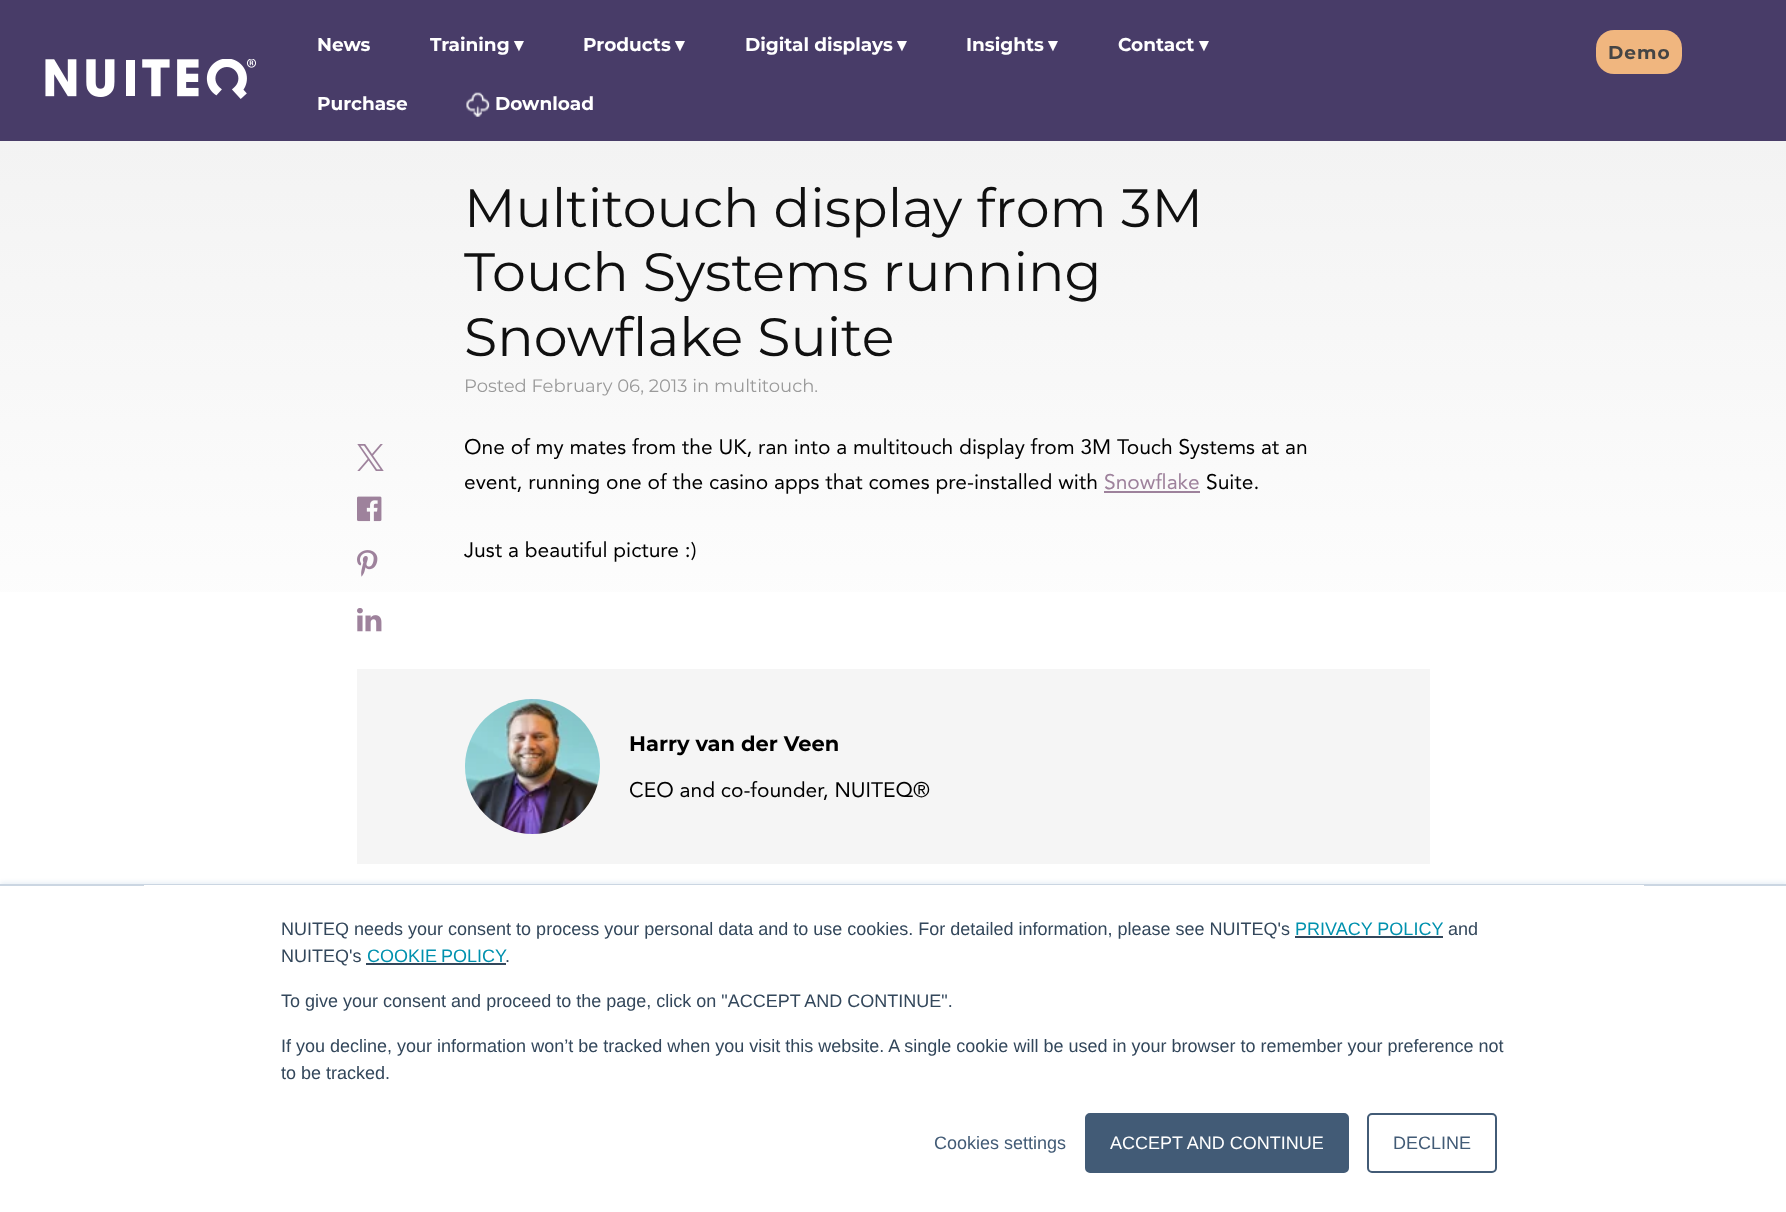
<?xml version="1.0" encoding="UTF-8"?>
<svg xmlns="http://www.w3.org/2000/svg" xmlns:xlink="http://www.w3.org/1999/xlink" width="1786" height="1212">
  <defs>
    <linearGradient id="g1" gradientUnits="userSpaceOnUse" x1="893" y1="0" x2="893" y2="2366"><stop offset="0" stop-color="#f0f0f0" /><stop offset="0.3" stop-color="#ffffff" /></linearGradient>
  </defs>
  <rect width="100%" height="100%" fill="#ffffff" />
  <rect y="141" width="1786" height="451" fill="url(#g1)" />
  <rect width="1786" height="141" fill="#483c68" />
  <image x="45" y="59" width="211" height="40" xlink:href="image1.png" />
  <image x="466" y="92" width="24" height="25" xlink:href="image2.png" />
  <rect x="1596" y="30" width="86" height="44" rx="18" fill="#f0b67f" />
  <image x="357" y="444" width="27" height="27" xlink:href="image3.png" />
  <image x="357" y="496" width="25" height="26" xlink:href="image4.png" />
  <image x="357" y="550" width="21" height="27" xlink:href="image5.png" />
  <image x="357" y="608" width="25" height="24" xlink:href="image6.png" />
  <rect x="1104" y="491" width="96" height="2" fill="#9e829c" />
  <rect x="357" y="669" width="1073" height="195" fill="#f5f5f5" />
  <image x="465" y="699" width="135" height="135" xlink:href="image7.png" />
  <rect y="882" width="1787" height="329" fill="#eaf0f6" filter="blur(2px)" />
  <rect y="886" width="1786" height="326" fill="#ffffff" />
  <rect y="884" width="1786" height="2" fill="#cbd6e2" />
  <rect x="144" y="885" width="1500" height="1" fill="#ffffff" />
  <rect x="1295" y="936" width="148" height="2" fill="#33475b" />
  <rect x="366" y="963" width="140" height="2" fill="#33475b" />
  <rect x="1086" y="1114" width="262" height="58" rx="4" fill="#425b76" stroke="#425b76" stroke-width="2" />
  <rect x="1368" y="1114" width="128" height="58" rx="4" fill="none" stroke="#425b76" stroke-width="2" />
  <text x="317" y="51" style="font-family: Montserrat; font-size: 18.5px; font-weight: bold; fill: #ffffff">News</text>
  <text x="430" y="51" style="font-family: Montserrat; font-size: 18.5px; font-weight: bold; fill: #ffffff">Training</text>
  <text x="514" y="51" style="font-family: DejaVu Sans; font-size: 18.5px; font-weight: bold; fill: #ffffff">▾</text>
  <text x="583" y="51" style="font-family: Montserrat; font-size: 18.5px; font-weight: bold; fill: #ffffff">Products</text>
  <text x="675" y="51" style="font-family: DejaVu Sans; font-size: 18.5px; font-weight: bold; fill: #ffffff">▾</text>
  <text x="745" y="51" style="font-family: Montserrat; font-size: 18.5px; font-weight: bold; fill: #ffffff">Digital displays</text>
  <text x="897" y="51" style="font-family: DejaVu Sans; font-size: 18.5px; font-weight: bold; fill: #ffffff">▾</text>
  <text x="966" y="51" style="font-family: Montserrat; font-size: 18.5px; font-weight: bold; fill: #ffffff">Insights</text>
  <text x="1048" y="51" style="font-family: DejaVu Sans; font-size: 18.5px; font-weight: bold; fill: #ffffff">▾</text>
  <text x="1118" y="51" style="font-family: Montserrat; font-size: 18.5px; font-weight: bold; fill: #ffffff">Contact</text>
  <text x="1199" y="51" style="font-family: DejaVu Sans; font-size: 18.5px; font-weight: bold; fill: #ffffff">▾</text>
  <text x="317" y="110" style="font-family: Montserrat; font-size: 18.5px; font-weight: bold; fill: #ffffff">Purchase</text>
  <text x="495" y="110" style="font-family: Montserrat; font-size: 18.5px; font-weight: bold; fill: #ffffff">Download</text>
  <text x="1608" y="59" style="font-family: Montserrat; font-size: 18.5px; font-weight: bold; letter-spacing: 1px; fill: #454545">Demo</text>
  <text x="464" y="227" style="font-family: Montserrat; font-size: 54px; fill: #101010">Multitouch display from 3M</text>
  <text x="464" y="291" style="font-family: Montserrat; font-size: 54px; fill: #101010">Touch Systems running</text>
  <text x="464" y="356" style="font-family: Montserrat; font-size: 54px; fill: #101010">Snowflake Suite</text>
  <text x="464" y="392" style="font-family: Montserrat; font-size: 18px; fill: #9a9a9a">Posted February 06, 2013 in multitouch.</text>
  <text x="464" y="454" style="font-family: Avenir; font-size: 21px; fill: #000000">One of my mates from the UK, ran into a multitouch display from 3M Touch Systems at an</text>
  <text x="464" y="489" style="font-family: Avenir; font-size: 21px; fill: #000000">event, running one of the casino apps that comes pre-installed with</text>
  <text x="1104" y="489" style="font-family: Avenir; font-size: 21px; fill: #9e829c">Snowflake</text>
  <text x="1206" y="489" style="font-family: Avenir; font-size: 21px; fill: #000000">Suite.</text>
  <text x="464" y="557" style="font-family: Avenir; font-size: 21px; fill: #000000">Just a beautiful picture :)</text>
  <text x="629" y="751" style="font-family: Montserrat; font-size: 21px; font-weight: bold; fill: #000000">Harry van der Veen</text>
  <text x="629" y="797" style="font-family: Avenir; font-size: 21px; fill: #000000">CEO and co-founder, NUITEQ®</text>
  <text x="281" y="935" style="font-family: Liberation Sans; font-size: 18px; fill: #33475b">NUITEQ needs your consent to process your personal data and to use cookies. For detailed information, please see NUITEQ's</text>
  <text x="1295" y="935" style="font-family: Liberation Sans; font-size: 18px; fill: #0091ae">PRIVACY POLICY</text>
  <text x="1448" y="935" style="font-family: Liberation Sans; font-size: 18px; fill: #33475b">and</text>
  <text x="281" y="962" style="font-family: Liberation Sans; font-size: 18px; fill: #33475b">NUITEQ's</text>
  <text x="367" y="962" word-spacing="-1" style="font-family: Liberation Sans; font-size: 18px; fill: #0091ae">COOKIE POLICY</text>
  <text x="505" y="962" style="font-family: Liberation Sans; font-size: 18px; fill: #33475b">.</text>
  <text x="281" y="1007" style="font-family: Liberation Sans; font-size: 18px; fill: #33475b">To give your consent and proceed to the page, click on "ACCEPT AND CONTINUE".</text>
  <text x="281" y="1052" style="font-family: Liberation Sans; font-size: 18px; fill: #33475b">If you decline, your information won’t be tracked when you visit this website. A single cookie will be used in your browser to remember your preference not</text>
  <text x="281" y="1079" style="font-family: Liberation Sans; font-size: 18px; fill: #33475b">to be tracked.</text>
  <text x="934" y="1149" style="font-family: Liberation Sans; font-size: 18px; fill: #425b76">Cookies settings</text>
  <text x="1110" y="1149" style="font-family: Liberation Sans; font-size: 18px; fill: #ffffff">ACCEPT AND CONTINUE</text>
  <text x="1393" y="1149" style="font-family: Liberation Sans; font-size: 18px; fill: #425b76">DECLINE</text>
</svg>
